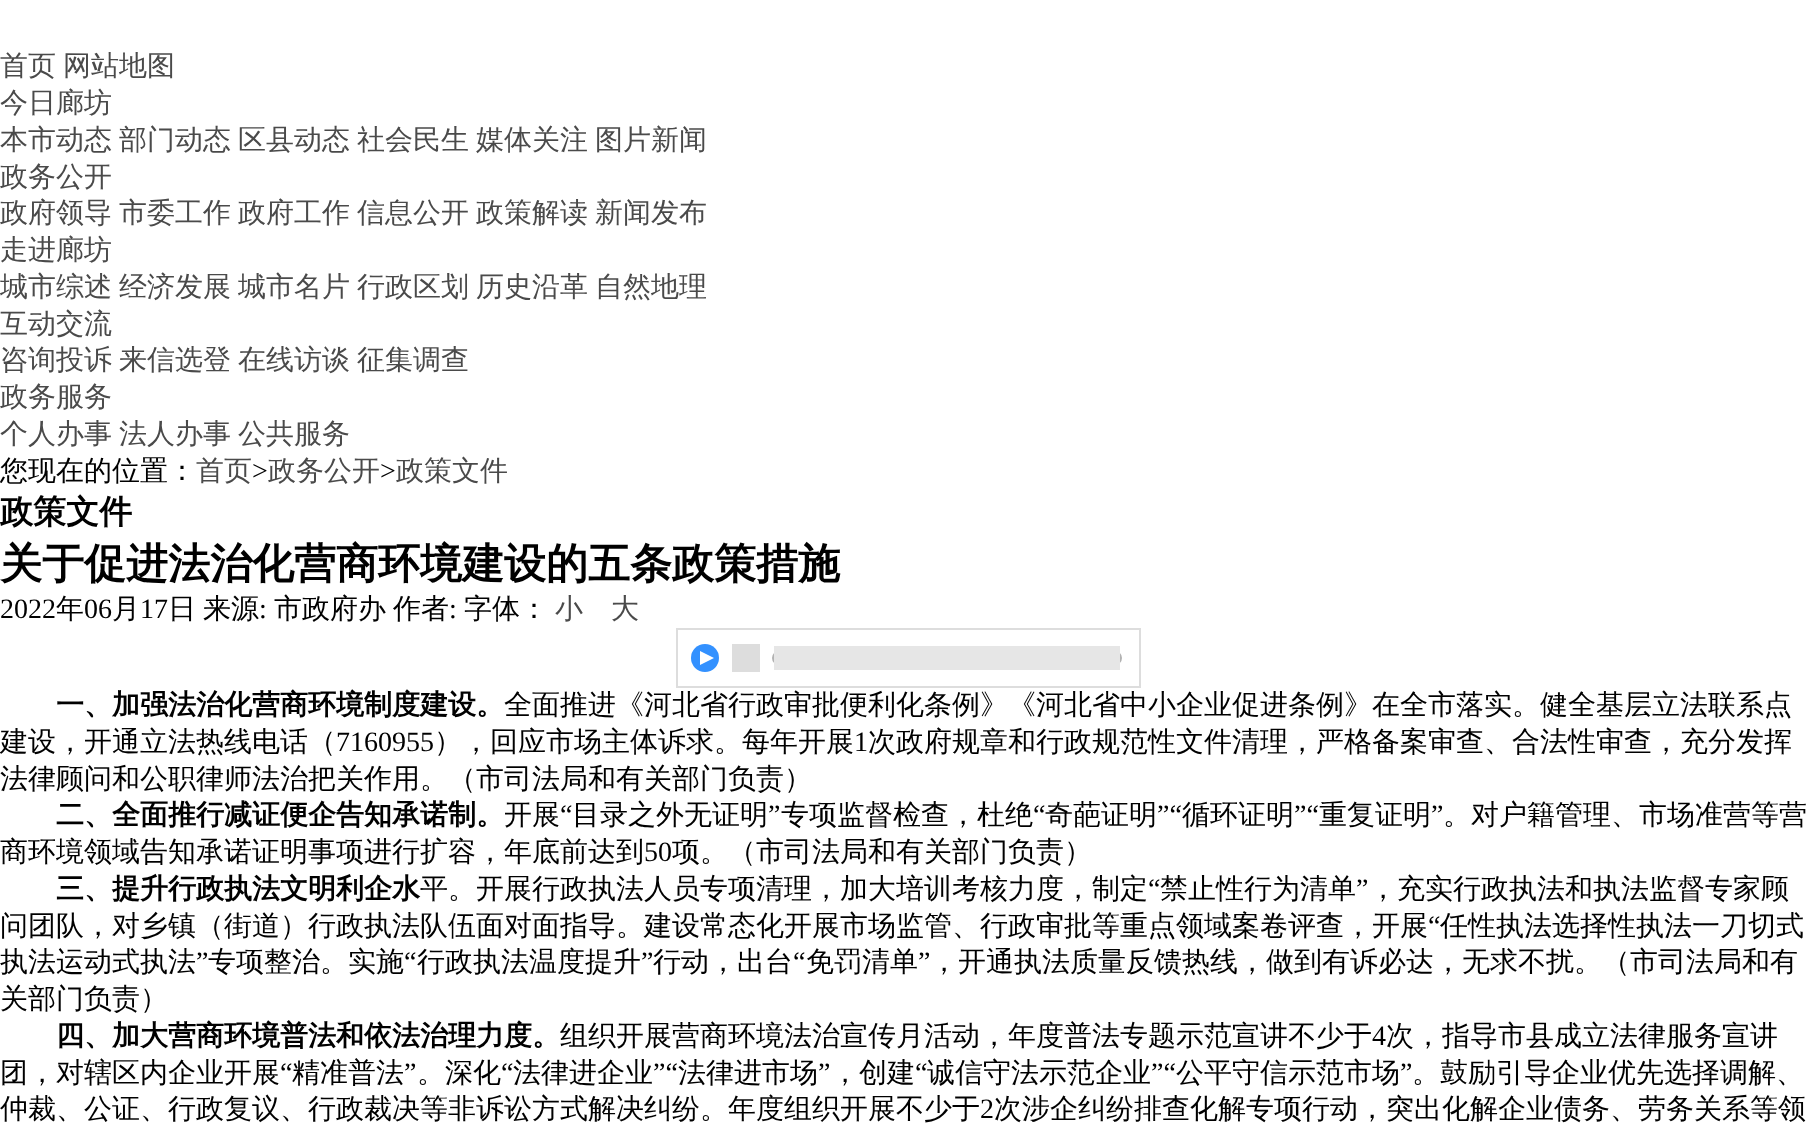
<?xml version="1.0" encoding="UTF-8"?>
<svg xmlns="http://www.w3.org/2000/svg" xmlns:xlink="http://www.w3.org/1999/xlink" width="1814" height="1124">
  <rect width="100%" height="100%" fill="#ffffff" />
  <rect x="677" y="629" width="463" height="58" fill="none" stroke="#dddddd" stroke-width="2" />
  <circle cx="705" cy="658" r="14" fill="#3391ff" />
  <path d="M 700 665 v -14 l 14 7 z" fill="#ffffff" />
  <rect x="732" y="644" width="28" height="28" fill="#dddddd" />
  <rect x="773" y="652" width="348" height="12" rx="6" fill="none" stroke="#b2b2b2" stroke-width="2" />
  <rect x="774" y="646" width="346" height="24" fill="#e6e6e6" />
  <text x="0" y="75" style="font-family: WenQuanYi Zen Hei; font-size: 28px; font-weight: 500; fill: #4a4a4a">首页</text>
  <text x="63" y="75" style="font-family: WenQuanYi Zen Hei; font-size: 28px; font-weight: 500; fill: #4a4a4a">网站地图</text>
  <text x="0" y="112" style="font-family: WenQuanYi Zen Hei; font-size: 28px; font-weight: 500; fill: #4a4a4a">今日廊坊</text>
  <text x="0" y="149" style="font-family: WenQuanYi Zen Hei; font-size: 28px; font-weight: 500; fill: #4a4a4a">本市动态</text>
  <text x="119" y="149" style="font-family: WenQuanYi Zen Hei; font-size: 28px; font-weight: 500; fill: #4a4a4a">部门动态</text>
  <text x="238" y="149" style="font-family: WenQuanYi Zen Hei; font-size: 28px; font-weight: 500; fill: #4a4a4a">区县动态</text>
  <text x="357" y="149" style="font-family: WenQuanYi Zen Hei; font-size: 28px; font-weight: 500; fill: #4a4a4a">社会民生</text>
  <text x="476" y="149" style="font-family: WenQuanYi Zen Hei; font-size: 28px; font-weight: 500; fill: #4a4a4a">媒体关注</text>
  <text x="595" y="149" style="font-family: WenQuanYi Zen Hei; font-size: 28px; font-weight: 500; fill: #4a4a4a">图片新闻</text>
  <text x="0" y="186" style="font-family: WenQuanYi Zen Hei; font-size: 28px; font-weight: 500; fill: #4a4a4a">政务公开</text>
  <text x="0" y="222" style="font-family: WenQuanYi Zen Hei; font-size: 28px; font-weight: 500; fill: #4a4a4a">政府领导</text>
  <text x="119" y="222" style="font-family: WenQuanYi Zen Hei; font-size: 28px; font-weight: 500; fill: #4a4a4a">市委工作</text>
  <text x="238" y="222" style="font-family: WenQuanYi Zen Hei; font-size: 28px; font-weight: 500; fill: #4a4a4a">政府工作</text>
  <text x="357" y="222" style="font-family: WenQuanYi Zen Hei; font-size: 28px; font-weight: 500; fill: #4a4a4a">信息公开</text>
  <text x="476" y="222" style="font-family: WenQuanYi Zen Hei; font-size: 28px; font-weight: 500; fill: #4a4a4a">政策解读</text>
  <text x="595" y="222" style="font-family: WenQuanYi Zen Hei; font-size: 28px; font-weight: 500; fill: #4a4a4a">新闻发布</text>
  <text x="0" y="259" style="font-family: WenQuanYi Zen Hei; font-size: 28px; font-weight: 500; fill: #4a4a4a">走进廊坊</text>
  <text x="0" y="296" style="font-family: WenQuanYi Zen Hei; font-size: 28px; font-weight: 500; fill: #4a4a4a">城市综述</text>
  <text x="119" y="296" style="font-family: WenQuanYi Zen Hei; font-size: 28px; font-weight: 500; fill: #4a4a4a">经济发展</text>
  <text x="238" y="296" style="font-family: WenQuanYi Zen Hei; font-size: 28px; font-weight: 500; fill: #4a4a4a">城市名片</text>
  <text x="357" y="296" style="font-family: WenQuanYi Zen Hei; font-size: 28px; font-weight: 500; fill: #4a4a4a">行政区划</text>
  <text x="476" y="296" style="font-family: WenQuanYi Zen Hei; font-size: 28px; font-weight: 500; fill: #4a4a4a">历史沿革</text>
  <text x="595" y="296" style="font-family: WenQuanYi Zen Hei; font-size: 28px; font-weight: 500; fill: #4a4a4a">自然地理</text>
  <text x="0" y="333" style="font-family: WenQuanYi Zen Hei; font-size: 28px; font-weight: 500; fill: #4a4a4a">互动交流</text>
  <text x="0" y="369" style="font-family: WenQuanYi Zen Hei; font-size: 28px; font-weight: 500; fill: #4a4a4a">咨询投诉</text>
  <text x="119" y="369" style="font-family: WenQuanYi Zen Hei; font-size: 28px; font-weight: 500; fill: #4a4a4a">来信选登</text>
  <text x="238" y="369" style="font-family: WenQuanYi Zen Hei; font-size: 28px; font-weight: 500; fill: #4a4a4a">在线访谈</text>
  <text x="357" y="369" style="font-family: WenQuanYi Zen Hei; font-size: 28px; font-weight: 500; fill: #4a4a4a">征集调查</text>
  <text x="0" y="406" style="font-family: WenQuanYi Zen Hei; font-size: 28px; font-weight: 500; fill: #4a4a4a">政务服务</text>
  <text x="0" y="443" style="font-family: WenQuanYi Zen Hei; font-size: 28px; font-weight: 500; fill: #4a4a4a">个人办事</text>
  <text x="119" y="443" style="font-family: WenQuanYi Zen Hei; font-size: 28px; font-weight: 500; fill: #4a4a4a">法人办事</text>
  <text x="238" y="443" style="font-family: WenQuanYi Zen Hei; font-size: 28px; font-weight: 500; fill: #4a4a4a">公共服务</text>
  <text x="0" y="480" style="font-family: WenQuanYi Zen Hei; font-size: 28px; font-weight: 500; fill: #000000">您现在的位置：</text>
  <text x="196" y="480" style="font-family: WenQuanYi Zen Hei; font-size: 28px; font-weight: 500; fill: #4a4a4a">首页</text>
  <text x="252" y="480" style="font-family: Liberation Serif; font-size: 28px; fill: #000000">&gt;</text>
  <text x="268" y="480" style="font-family: WenQuanYi Zen Hei; font-size: 28px; font-weight: 500; fill: #4a4a4a">政务公开</text>
  <text x="380" y="480" style="font-family: Liberation Serif; font-size: 28px; fill: #000000">&gt;</text>
  <text x="396" y="480" style="font-family: WenQuanYi Zen Hei; font-size: 28px; font-weight: 500; fill: #4a4a4a">政策文件</text>
  <text x="0" y="523" style="font-family: WenQuanYi Zen Hei; font-size: 33px; font-weight: bold; fill: #000000">政策文件</text>
  <text x="0" y="578" style="font-family: WenQuanYi Zen Hei; font-size: 42px; font-weight: bold; fill: #000000">关于促进法治化营商环境建设的五条政策措施</text>
  <text x="0" y="618" style="font-family: Liberation Serif; font-size: 28px; fill: #000000">2022</text>
  <text x="56" y="618" style="font-family: WenQuanYi Zen Hei; font-size: 28px; font-weight: 500; fill: #000000">年</text>
  <text x="84" y="618" style="font-family: Liberation Serif; font-size: 28px; fill: #000000">06</text>
  <text x="112" y="618" style="font-family: WenQuanYi Zen Hei; font-size: 28px; font-weight: 500; fill: #000000">月</text>
  <text x="140" y="618" style="font-family: Liberation Serif; font-size: 28px; fill: #000000">17</text>
  <text x="168" y="618" style="font-family: WenQuanYi Zen Hei; font-size: 28px; font-weight: 500; fill: #000000">日</text>
  <text x="203" y="618" style="font-family: WenQuanYi Zen Hei; font-size: 28px; font-weight: 500; fill: #000000">来源</text>
  <text x="259" y="618" style="font-family: Liberation Serif; font-size: 28px; fill: #000000">:</text>
  <text x="274" y="618" style="font-family: WenQuanYi Zen Hei; font-size: 28px; font-weight: 500; fill: #000000">市政府办</text>
  <text x="393" y="618" style="font-family: WenQuanYi Zen Hei; font-size: 28px; font-weight: 500; fill: #000000">作者</text>
  <text x="449" y="618" style="font-family: Liberation Serif; font-size: 28px; fill: #000000">:</text>
  <text x="464" y="618" style="font-family: WenQuanYi Zen Hei; font-size: 28px; font-weight: 500; fill: #000000">字体：</text>
  <text x="555" y="618" style="font-family: WenQuanYi Zen Hei; font-size: 28px; font-weight: 500; fill: #4a4a4a">小</text>
  <text x="611" y="618" style="font-family: WenQuanYi Zen Hei; font-size: 28px; font-weight: 500; fill: #4a4a4a">大</text>
  <text x="56" y="714" style="font-family: WenQuanYi Zen Hei; font-size: 28px; font-weight: bold; fill: #000000">一、加强法治化营商环境制度建设。</text>
  <text x="504" y="714" style="font-family: WenQuanYi Zen Hei; font-size: 28px; font-weight: 500; fill: #000000">全面推进《河北省行政审批便利化条例》《河北省中小企业促进条例》在全市落实。健全基层立法联系点</text>
  <text x="0" y="751" style="font-family: WenQuanYi Zen Hei; font-size: 28px; font-weight: 500; fill: #000000">建设，开通立法热线电话（</text>
  <text x="336" y="751" style="font-family: Liberation Serif; font-size: 28px; fill: #000000">7160955</text>
  <text x="434" y="751" style="font-family: WenQuanYi Zen Hei; font-size: 28px; font-weight: 500; fill: #000000">），回应市场主体诉求。每年开展</text>
  <text x="854" y="751" style="font-family: Liberation Serif; font-size: 28px; fill: #000000">1</text>
  <text x="868" y="751" style="font-family: WenQuanYi Zen Hei; font-size: 28px; font-weight: 500; fill: #000000">次政府规章和行政规范性文件清理，严格备案审查、合法性审查，充分发挥</text>
  <text x="0" y="788" style="font-family: WenQuanYi Zen Hei; font-size: 28px; font-weight: 500; fill: #000000">法律顾问和公职律师法治把关作用。（市司法局和有关部门负责）</text>
  <text x="56" y="824" style="font-family: WenQuanYi Zen Hei; font-size: 28px; font-weight: bold; fill: #000000">二、全面推行减证便企告知承诺制。</text>
  <text x="504" y="824" style="font-family: WenQuanYi Zen Hei; font-size: 28px; font-weight: 500; fill: #000000">开展</text>
  <text x="560" y="824" style="font-family: Liberation Serif; font-size: 28px; fill: #000000">“</text>
  <text x="572" y="824" style="font-family: WenQuanYi Zen Hei; font-size: 28px; font-weight: 500; fill: #000000">目录之外无证明</text>
  <text x="768" y="824" style="font-family: Liberation Serif; font-size: 28px; fill: #000000">”</text>
  <text x="781" y="824" style="font-family: WenQuanYi Zen Hei; font-size: 28px; font-weight: 500; fill: #000000">专项监督检查，杜绝</text>
  <text x="1033" y="824" style="font-family: Liberation Serif; font-size: 28px; fill: #000000">“</text>
  <text x="1045" y="824" style="font-family: WenQuanYi Zen Hei; font-size: 28px; font-weight: 500; fill: #000000">奇葩证明</text>
  <text x="1157" y="824" style="font-family: Liberation Serif; font-size: 28px; fill: #000000">”“</text>
  <text x="1182" y="824" style="font-family: WenQuanYi Zen Hei; font-size: 28px; font-weight: 500; fill: #000000">循环证明</text>
  <text x="1294" y="824" style="font-family: Liberation Serif; font-size: 28px; fill: #000000">”“</text>
  <text x="1319" y="824" style="font-family: WenQuanYi Zen Hei; font-size: 28px; font-weight: 500; fill: #000000">重复证明</text>
  <text x="1431" y="824" style="font-family: Liberation Serif; font-size: 28px; fill: #000000">”</text>
  <text x="1443" y="824" style="font-family: WenQuanYi Zen Hei; font-size: 28px; font-weight: 500; fill: #000000">。对户籍管理、市场准营等营</text>
  <text x="0" y="861" style="font-family: WenQuanYi Zen Hei; font-size: 28px; font-weight: 500; fill: #000000">商环境领域告知承诺证明事项进行扩容，年底前达到</text>
  <text x="644" y="861" style="font-family: Liberation Serif; font-size: 28px; fill: #000000">50</text>
  <text x="672" y="861" style="font-family: WenQuanYi Zen Hei; font-size: 28px; font-weight: 500; fill: #000000">项。（市司法局和有关部门负责）</text>
  <text x="56" y="898" style="font-family: WenQuanYi Zen Hei; font-size: 28px; font-weight: bold; fill: #000000">三、提升行政执法文明利企水</text>
  <text x="420" y="898" style="font-family: WenQuanYi Zen Hei; font-size: 28px; font-weight: 500; fill: #000000">平。开展行政执法人员专项清理，加大培训考核力度，制定</text>
  <text x="1148" y="898" style="font-family: Liberation Serif; font-size: 28px; fill: #000000">“</text>
  <text x="1160" y="898" style="font-family: WenQuanYi Zen Hei; font-size: 28px; font-weight: 500; fill: #000000">禁止性行为清单</text>
  <text x="1356" y="898" style="font-family: Liberation Serif; font-size: 28px; fill: #000000">”</text>
  <text x="1369" y="898" style="font-family: WenQuanYi Zen Hei; font-size: 28px; font-weight: 500; fill: #000000">，充实行政执法和执法监督专家顾</text>
  <text x="0" y="935" style="font-family: WenQuanYi Zen Hei; font-size: 28px; font-weight: 500; fill: #000000">问团队，对乡镇（街道）行政执法队伍面对面指导。建设常态化开展市场监管、行政审批等重点领域案卷评查，开展</text>
  <text x="1428" y="935" style="font-family: Liberation Serif; font-size: 28px; fill: #000000">“</text>
  <text x="1440" y="935" style="font-family: WenQuanYi Zen Hei; font-size: 28px; font-weight: 500; fill: #000000">任性执法选择性执法一刀切式</text>
  <text x="0" y="971" style="font-family: WenQuanYi Zen Hei; font-size: 28px; font-weight: 500; fill: #000000">执法运动式执法</text>
  <text x="196" y="971" style="font-family: Liberation Serif; font-size: 28px; fill: #000000">”</text>
  <text x="208" y="971" style="font-family: WenQuanYi Zen Hei; font-size: 28px; font-weight: 500; fill: #000000">专项整治。实施</text>
  <text x="404" y="971" style="font-family: Liberation Serif; font-size: 28px; fill: #000000">“</text>
  <text x="417" y="971" style="font-family: WenQuanYi Zen Hei; font-size: 28px; font-weight: 500; fill: #000000">行政执法温度提升</text>
  <text x="641" y="971" style="font-family: Liberation Serif; font-size: 28px; fill: #000000">”</text>
  <text x="653" y="971" style="font-family: WenQuanYi Zen Hei; font-size: 28px; font-weight: 500; fill: #000000">行动，出台</text>
  <text x="793" y="971" style="font-family: Liberation Serif; font-size: 28px; fill: #000000">“</text>
  <text x="806" y="971" style="font-family: WenQuanYi Zen Hei; font-size: 28px; font-weight: 500; fill: #000000">免罚清单</text>
  <text x="918" y="971" style="font-family: Liberation Serif; font-size: 28px; fill: #000000">”</text>
  <text x="930" y="971" style="font-family: WenQuanYi Zen Hei; font-size: 28px; font-weight: 500; fill: #000000">，开通执法质量反馈热线，做到有诉必达，无求不扰。（市司法局和有</text>
  <text x="0" y="1008" style="font-family: WenQuanYi Zen Hei; font-size: 28px; font-weight: 500; fill: #000000">关部门负责）</text>
  <text x="56" y="1045" style="font-family: WenQuanYi Zen Hei; font-size: 28px; font-weight: bold; fill: #000000">四、加大营商环境普法和依法治理力度。</text>
  <text x="560" y="1045" style="font-family: WenQuanYi Zen Hei; font-size: 28px; font-weight: 500; fill: #000000">组织开展营商环境法治宣传月活动，年度普法专题示范宣讲不少于</text>
  <text x="1372" y="1045" style="font-family: Liberation Serif; font-size: 28px; fill: #000000">4</text>
  <text x="1386" y="1045" style="font-family: WenQuanYi Zen Hei; font-size: 28px; font-weight: 500; fill: #000000">次，指导市县成立法律服务宣讲</text>
  <text x="0" y="1082" style="font-family: WenQuanYi Zen Hei; font-size: 28px; font-weight: 500; fill: #000000">团，对辖区内企业开展</text>
  <text x="280" y="1082" style="font-family: Liberation Serif; font-size: 28px; fill: #000000">“</text>
  <text x="292" y="1082" style="font-family: WenQuanYi Zen Hei; font-size: 28px; font-weight: 500; fill: #000000">精准普法</text>
  <text x="404" y="1082" style="font-family: Liberation Serif; font-size: 28px; fill: #000000">”</text>
  <text x="417" y="1082" style="font-family: WenQuanYi Zen Hei; font-size: 28px; font-weight: 500; fill: #000000">。深化</text>
  <text x="501" y="1082" style="font-family: Liberation Serif; font-size: 28px; fill: #000000">“</text>
  <text x="513" y="1082" style="font-family: WenQuanYi Zen Hei; font-size: 28px; font-weight: 500; fill: #000000">法律进企业</text>
  <text x="653" y="1082" style="font-family: Liberation Serif; font-size: 28px; fill: #000000">”“</text>
  <text x="678" y="1082" style="font-family: WenQuanYi Zen Hei; font-size: 28px; font-weight: 500; fill: #000000">法律进市场</text>
  <text x="818" y="1082" style="font-family: Liberation Serif; font-size: 28px; fill: #000000">”</text>
  <text x="831" y="1082" style="font-family: WenQuanYi Zen Hei; font-size: 28px; font-weight: 500; fill: #000000">，创建</text>
  <text x="915" y="1082" style="font-family: Liberation Serif; font-size: 28px; fill: #000000">“</text>
  <text x="927" y="1082" style="font-family: WenQuanYi Zen Hei; font-size: 28px; font-weight: 500; fill: #000000">诚信守法示范企业</text>
  <text x="1151" y="1082" style="font-family: Liberation Serif; font-size: 28px; fill: #000000">”“</text>
  <text x="1176" y="1082" style="font-family: WenQuanYi Zen Hei; font-size: 28px; font-weight: 500; fill: #000000">公平守信示范市场</text>
  <text x="1400" y="1082" style="font-family: Liberation Serif; font-size: 28px; fill: #000000">”</text>
  <text x="1412" y="1082" style="font-family: WenQuanYi Zen Hei; font-size: 28px; font-weight: 500; fill: #000000">。鼓励引导企业优先选择调解、</text>
  <text x="0" y="1118" style="font-family: WenQuanYi Zen Hei; font-size: 28px; font-weight: 500; fill: #000000">仲裁、公证、行政复议、行政裁决等非诉讼方式解决纠纷。年度组织开展不少于</text>
  <text x="980" y="1118" style="font-family: Liberation Serif; font-size: 28px; fill: #000000">2</text>
  <text x="994" y="1118" style="font-family: WenQuanYi Zen Hei; font-size: 28px; font-weight: 500; fill: #000000">次涉企纠纷排查化解专项行动，突出化解企业债务、劳务关系等领</text>
</svg>
